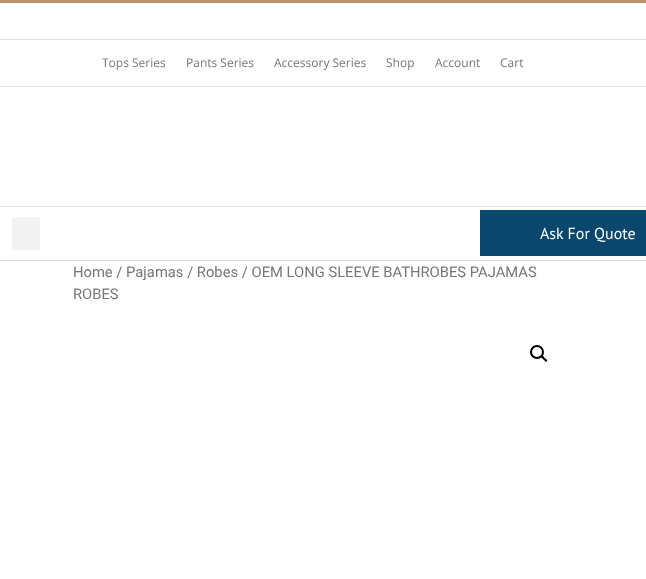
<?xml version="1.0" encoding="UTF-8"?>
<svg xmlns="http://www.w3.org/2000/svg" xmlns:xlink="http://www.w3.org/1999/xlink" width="646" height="579">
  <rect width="100%" height="100%" fill="#ffffff" />
  <rect width="646" height="3" fill="#b8906c" />
  <rect y="39" width="646" height="1" fill="#e1e1e1" />
  <rect y="86" width="646" height="1" fill="#e1e1e1" />
  <rect y="206" width="646" height="1" fill="#e1e1e1" />
  <rect y="260" width="646" height="1" fill="#e1e1e1" />
  <rect x="12" y="217" width="28" height="33" rx="3" fill="#f2f2f2" />
  <rect x="480" y="210" width="166" height="46" fill="#0a476d" />
  <circle cx="537" cy="352" r="6" fill="none" stroke="#000000" stroke-width="2" />
  <path d="M 541 355.5 c 1.5 -1 3 1.5 3.5 2.5 c 1 0.5 3.5 2 2.5 3.5 c -1.5 1 -3 -1.5 -3.5 -2 c -1 -1 -3.5 -2.5 -2.5 -4 z" fill="#000000" />
  <text x="102" y="67" style="font-family: Open Sans; font-size: 12px; fill: #767676">Tops Series</text>
  <text x="186" y="67" style="font-family: Open Sans; font-size: 12px; fill: #767676">Pants Series</text>
  <text x="274" y="67" style="font-family: Open Sans; font-size: 12px; fill: #767676">Accessory Series</text>
  <text x="386" y="67" style="font-family: Open Sans; font-size: 12px; fill: #767676">Shop</text>
  <text x="435" y="67" style="font-family: Open Sans; font-size: 12px; fill: #767676">Account</text>
  <text x="500" y="67" style="font-family: Open Sans; font-size: 12px; fill: #767676">Cart</text>
  <text x="540" y="239" style="font-family: PT Sans; font-size: 16px; fill: #ffffff">Ask For Quote</text>
  <text x="73" y="277" style="font-family: Roboto; font-size: 14.75px; fill: #767676">Home / Pajamas / Robes / OEM LONG SLEEVE BATHROBES PAJAMAS</text>
  <text x="73" y="299" style="font-family: Roboto; font-size: 14.75px; fill: #767676">ROBES</text>
</svg>
